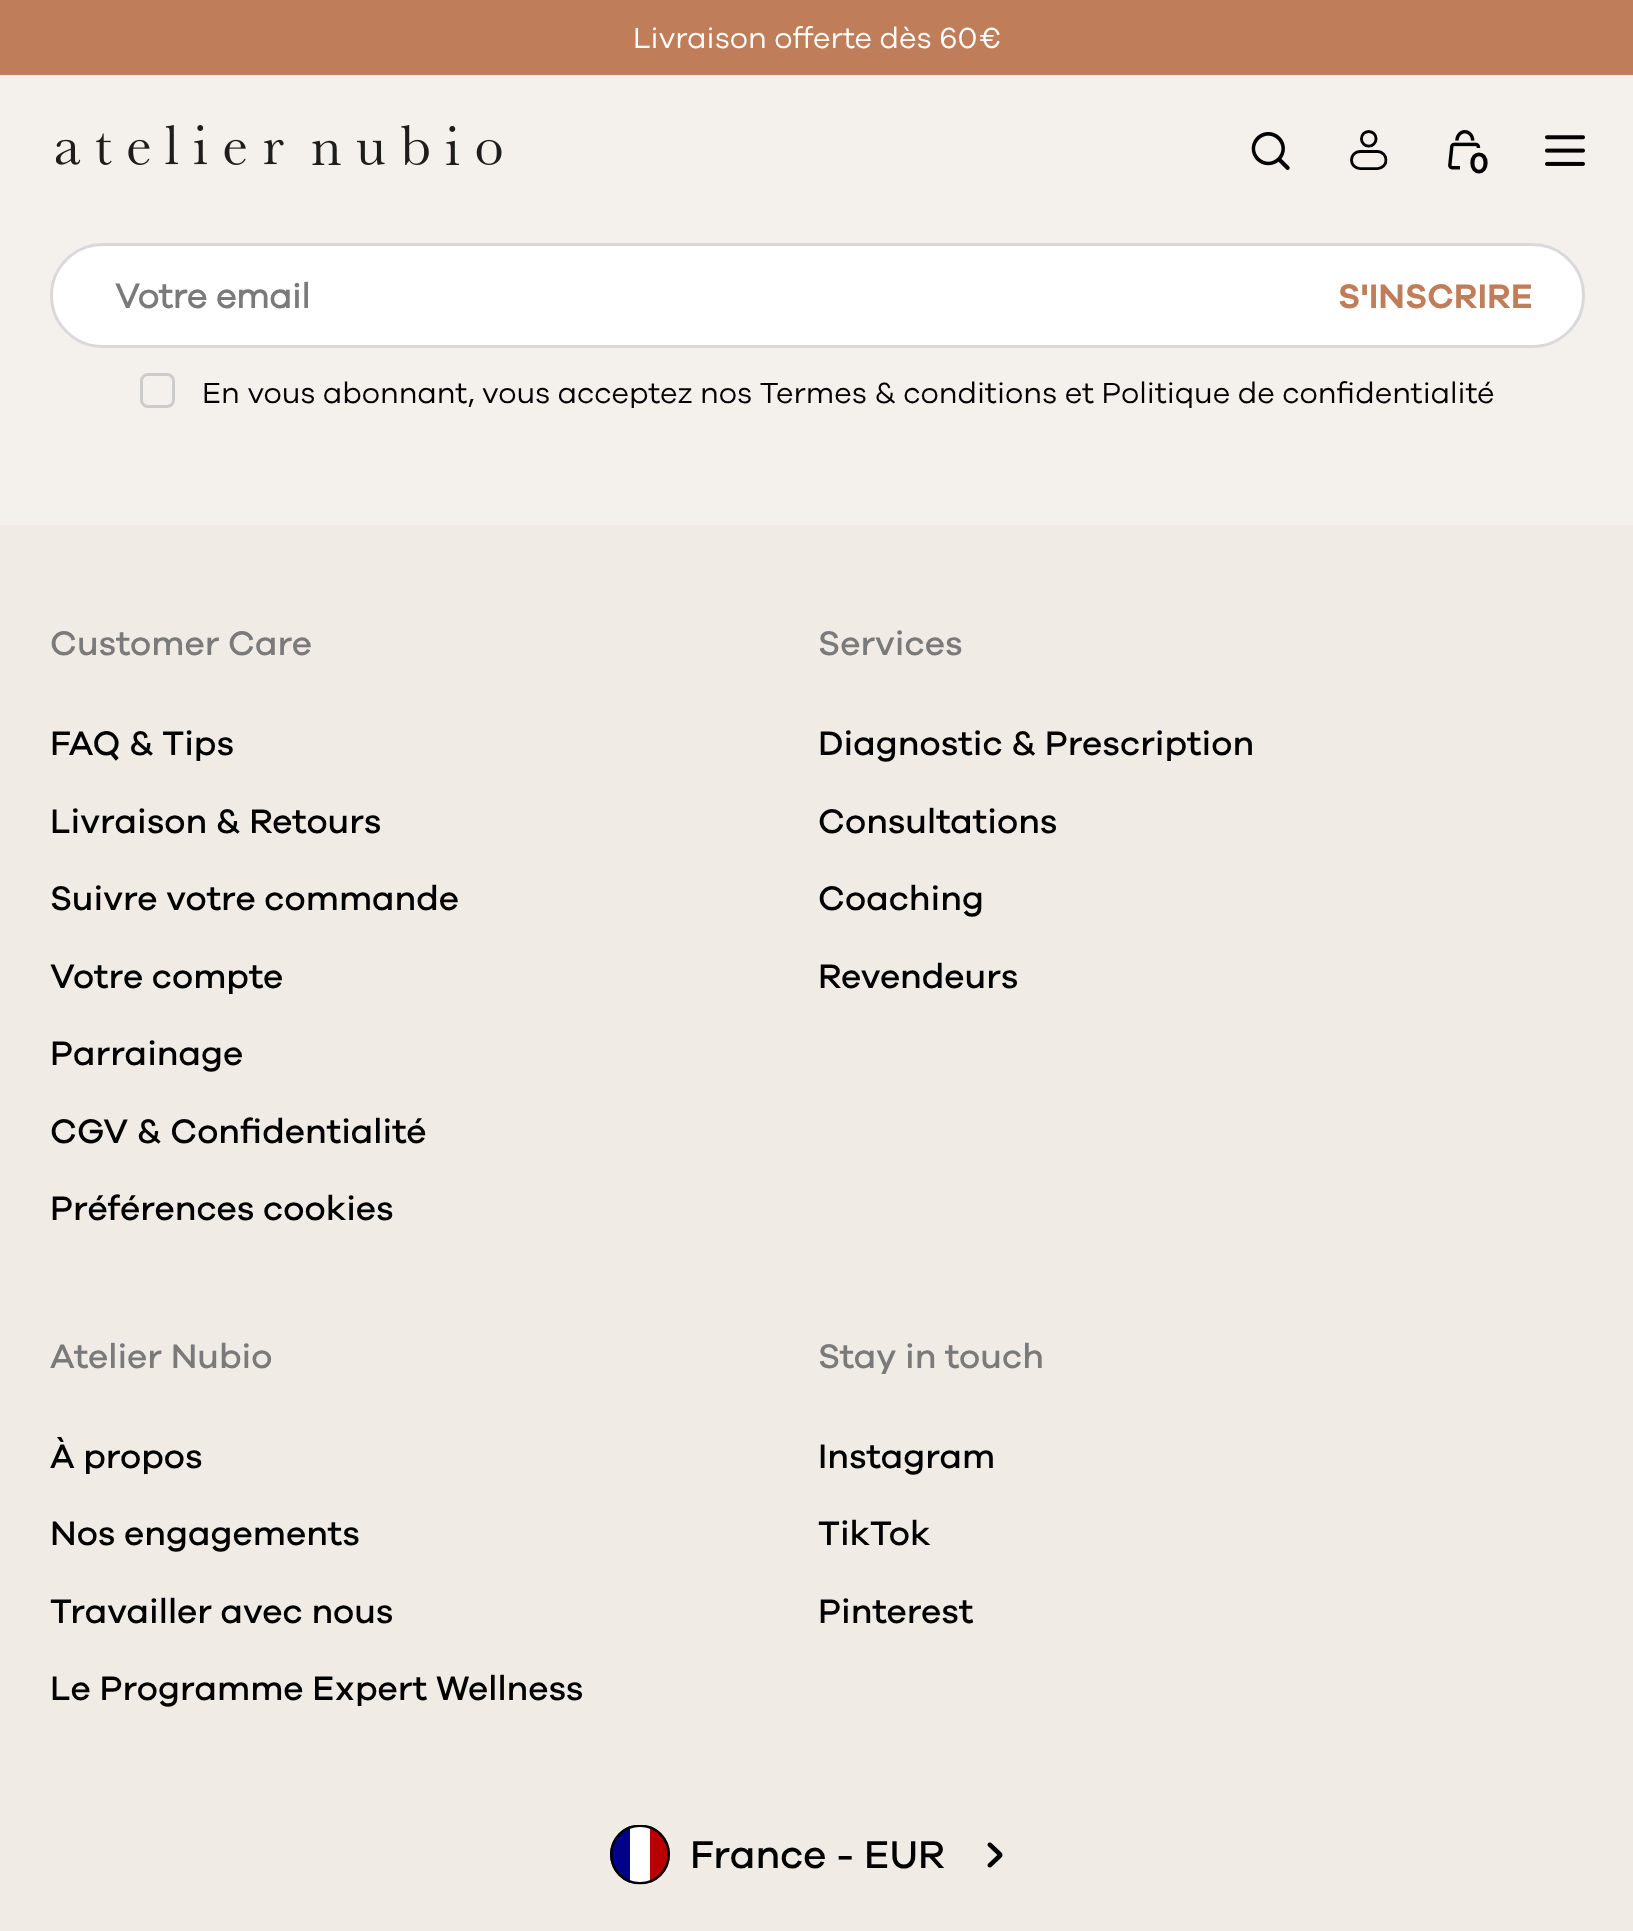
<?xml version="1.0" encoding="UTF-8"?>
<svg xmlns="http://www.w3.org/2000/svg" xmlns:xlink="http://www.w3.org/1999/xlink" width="1633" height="1931">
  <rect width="100%" height="100%" fill="#f4f0ec" />
  <rect width="1633" height="75" fill="#c07d59" />
  <image x="56" y="125" width="446" height="40" xlink:href="image1.png" />
  <image x="1251" y="132" width="39" height="38" xlink:href="image2.png" />
  <image x="1350" y="130" width="38" height="40" xlink:href="image3.png" />
  <image x="1448" y="130" width="33" height="40" xlink:href="image4.png" />
  <rect x="1460" y="148" width="21" height="22" fill="#f4f0ec" />
  <image x="1545" y="135" width="40" height="31" xlink:href="image5.png" />
  <rect x="50" y="243" width="1535" height="105" rx="52.5" fill="#ffffff" />
  <rect x="51.5" y="244.5" width="1532" height="102" rx="51" fill="none" stroke="#000000" stroke-opacity="0.15" stroke-width="3" />
  <rect x="141.5" y="374.5" width="32" height="32" rx="6.5" fill="none" stroke="#cccccc" stroke-width="3" />
  <rect y="525" width="1633" height="1406" fill="#f0ebe5" />
  <image x="610" y="1825" width="60" height="60" xlink:href="image6.png" />
  <image x="987" y="1842" width="16" height="26" xlink:href="image7.png" />
  <text x="633" y="48" style="font-family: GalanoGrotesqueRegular; font-size: 30px; fill: #ffffff">Livraison offerte dès 60€</text>
  <text x="1469" y="173" style="font-family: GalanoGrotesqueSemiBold; font-size: 30px; font-weight: 600; fill: #000000">0</text>
  <text x="115" y="308" style="font-family: GalanoGrotesqueRegular; font-size: 35px; font-weight: bold; fill: #7a7a7a">Votre email</text>
  <text x="1338" y="308" style="font-family: GalanoGrotesqueSemiBold; font-size: 35px; font-weight: 600; fill: #c07d59">S'INSCRIRE</text>
  <text x="202" y="403" style="font-family: GalanoGrotesqueRegular; font-size: 30px; fill: #000000">En vous abonnant, vous acceptez nos Termes &amp; conditions et Politique de confidentialité</text>
  <text x="50" y="655" style="font-family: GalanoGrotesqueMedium; font-size: 35px; font-weight: 500; fill: #7a7a7a">Customer Care</text>
  <text x="50" y="755" style="font-family: GalanoGrotesqueMedium; font-size: 35px; font-weight: 500; fill: #000000">FAQ &amp; Tips</text>
  <text x="50" y="833" style="font-family: GalanoGrotesqueMedium; font-size: 35px; font-weight: 500; fill: #000000">Livraison &amp; Retours</text>
  <text x="50" y="910" style="font-family: GalanoGrotesqueMedium; font-size: 35px; font-weight: 500; fill: #000000">Suivre votre commande</text>
  <text x="50" y="988" style="font-family: GalanoGrotesqueMedium; font-size: 35px; font-weight: 500; fill: #000000">Votre compte</text>
  <text x="50" y="1065" style="font-family: GalanoGrotesqueMedium; font-size: 35px; font-weight: 500; fill: #000000">Parrainage</text>
  <text x="50" y="1143" style="font-family: GalanoGrotesqueMedium; font-size: 35px; font-weight: 500; fill: #000000">CGV &amp; Confidentialité</text>
  <text x="50" y="1220" style="font-family: GalanoGrotesqueMedium; font-size: 35px; font-weight: 500; fill: #000000">Préférences cookies</text>
  <text x="818" y="655" style="font-family: GalanoGrotesqueMedium; font-size: 35px; font-weight: 500; fill: #7a7a7a">Services</text>
  <text x="818" y="755" style="font-family: GalanoGrotesqueMedium; font-size: 35px; font-weight: 500; fill: #000000">Diagnostic &amp; Prescription</text>
  <text x="818" y="833" style="font-family: GalanoGrotesqueMedium; font-size: 35px; font-weight: 500; fill: #000000">Consultations</text>
  <text x="818" y="910" style="font-family: GalanoGrotesqueMedium; font-size: 35px; font-weight: 500; fill: #000000">Coaching</text>
  <text x="818" y="988" style="font-family: GalanoGrotesqueMedium; font-size: 35px; font-weight: 500; fill: #000000">Revendeurs</text>
  <text x="50" y="1368" style="font-family: GalanoGrotesqueMedium; font-size: 35px; font-weight: 500; fill: #7a7a7a">Atelier Nubio</text>
  <text x="50" y="1468" style="font-family: GalanoGrotesqueMedium; font-size: 35px; font-weight: 500; fill: #000000">À propos</text>
  <text x="50" y="1545" style="font-family: GalanoGrotesqueMedium; font-size: 35px; font-weight: 500; fill: #000000">Nos engagements</text>
  <text x="50" y="1623" style="font-family: GalanoGrotesqueMedium; font-size: 35px; font-weight: 500; fill: #000000">Travailler avec nous</text>
  <text x="50" y="1700" style="font-family: GalanoGrotesqueMedium; font-size: 35px; font-weight: 500; fill: #000000">Le Programme Expert Wellness</text>
  <text x="818" y="1368" style="font-family: GalanoGrotesqueMedium; font-size: 35px; font-weight: 500; fill: #7a7a7a">Stay in touch</text>
  <text x="818" y="1468" style="font-family: GalanoGrotesqueMedium; font-size: 35px; font-weight: 500; fill: #000000">Instagram</text>
  <text x="818" y="1545" style="font-family: GalanoGrotesqueMedium; font-size: 35px; font-weight: 500; fill: #000000">TikTok</text>
  <text x="818" y="1623" style="font-family: GalanoGrotesqueMedium; font-size: 35px; font-weight: 500; fill: #000000">Pinterest</text>
  <text x="690" y="1868" style="font-family: GalanoGrotesqueMedium; font-size: 40px; font-weight: 500; fill: #000000">France - EUR</text>
</svg>
